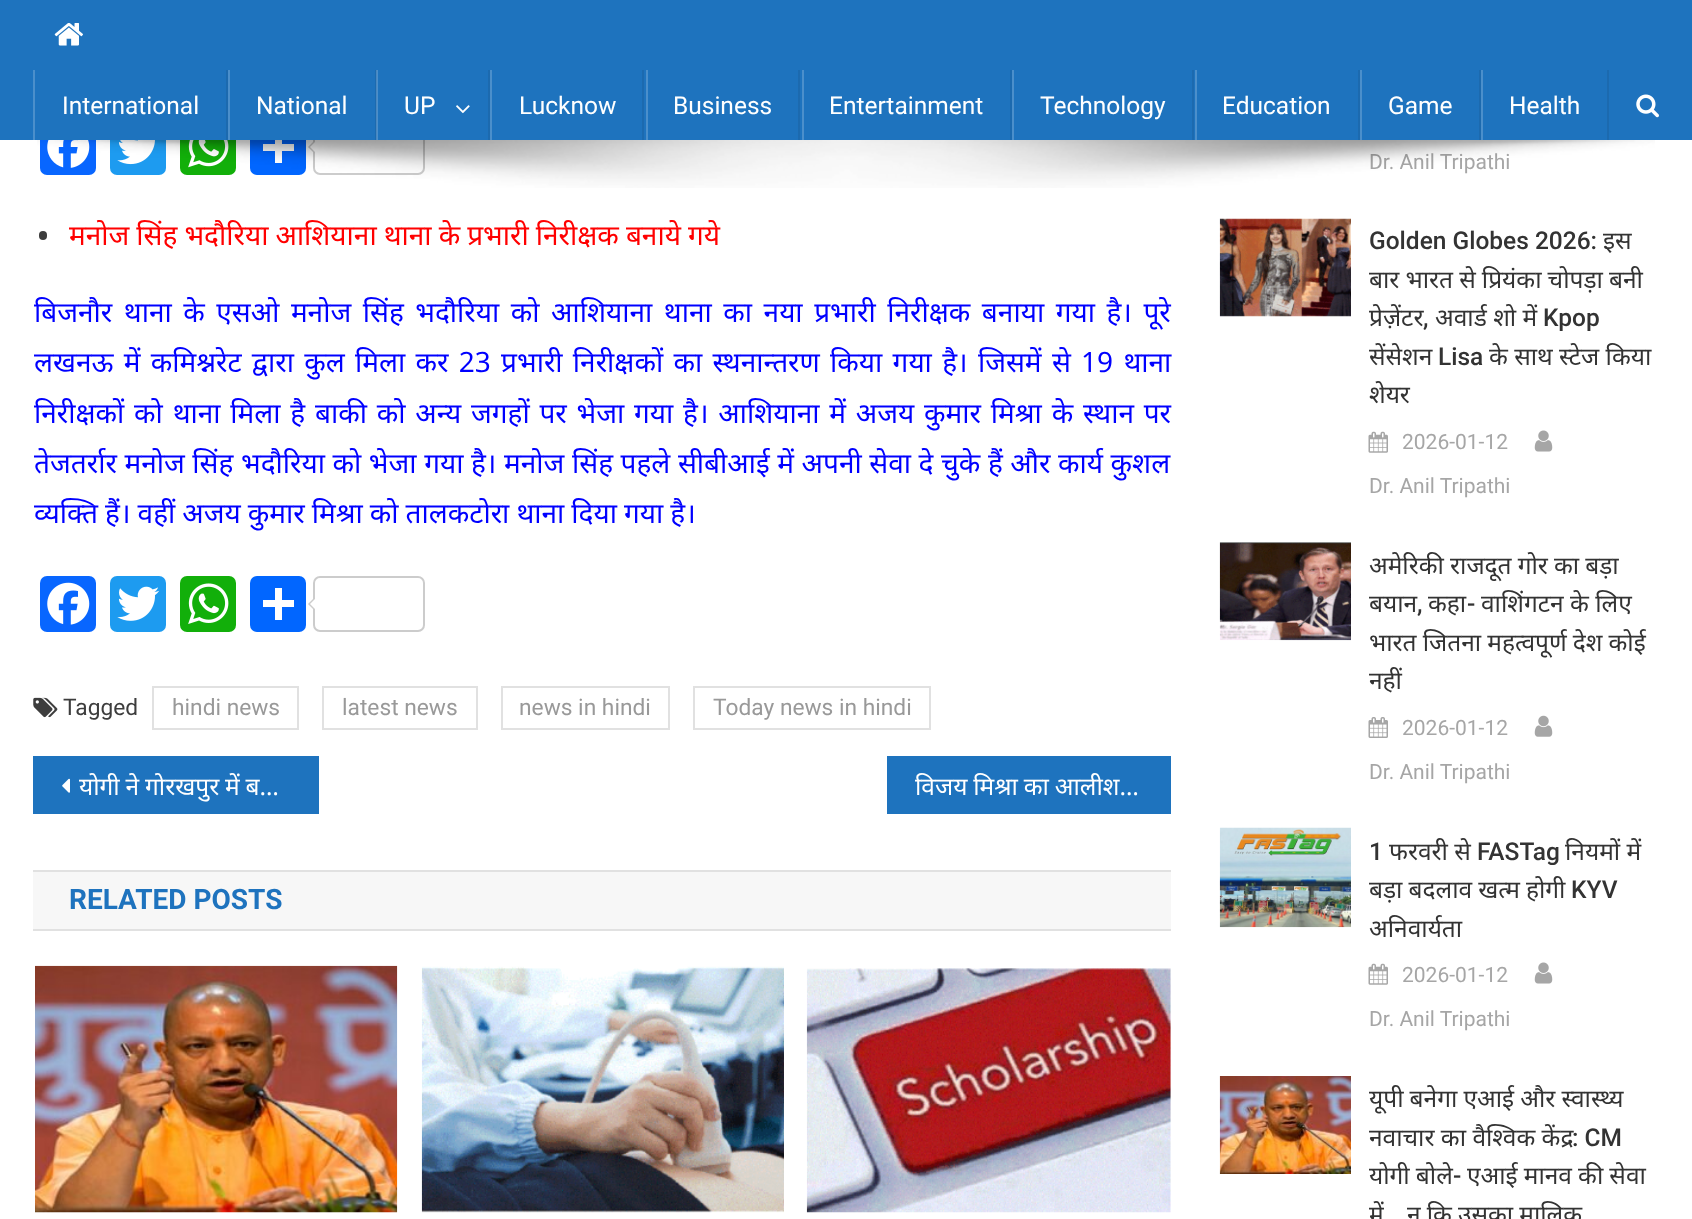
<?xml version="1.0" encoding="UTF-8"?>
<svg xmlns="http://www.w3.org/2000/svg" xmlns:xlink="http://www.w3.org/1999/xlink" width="1692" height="1219">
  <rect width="100%" height="100%" fill="#ffffff" />
  <rect x="40" y="119" width="56" height="56" rx="7" fill="#0866ff" />
  <rect x="110" y="119" width="56" height="56" rx="7" fill="#1d9bf0" />
  <rect x="180" y="119" width="56" height="56" rx="7" fill="#12af0a" />
  <rect x="250" y="119" width="56" height="56" rx="7" fill="#0166ff" />
  <rect x="314" y="120" width="110" height="54" rx="6" fill="none" stroke="#cccccc" stroke-width="2" />
  <rect width="1692" height="140" fill="#1e73be" />
  <image x="54" y="23" width="29" height="23" xlink:href="image1.png" />
  <rect x="226" y="70" width="2" height="70" fill="#1c6aaf" />
  <rect x="33" y="70" width="2" height="70" fill="#4b8fcb" />
  <rect x="375" y="70" width="2" height="70" fill="#1c6aaf" />
  <rect x="228" y="70" width="2" height="70" fill="#4b8fcb" />
  <rect x="488" y="70" width="2" height="70" fill="#1c6aaf" />
  <rect x="376" y="70" width="2" height="70" fill="#ffffff" fill-opacity="0.2" />
  <image x="456" y="105" width="14" height="9" xlink:href="image2.png" />
  <rect x="642" y="70" width="2" height="70" fill="#1c6aaf" />
  <rect x="490" y="70" width="2" height="70" fill="#4b8fcb" />
  <rect x="798" y="70" width="2" height="70" fill="#1c6aaf" />
  <rect x="646" y="70" width="2" height="70" fill="#4b8fcb" />
  <rect x="1010" y="70" width="2" height="70" fill="#1c6aaf" />
  <rect x="802" y="70" width="2" height="70" fill="#4b8fcb" />
  <rect x="1192" y="70" width="2" height="70" fill="#1c6aaf" />
  <rect x="1012" y="70" width="2" height="70" fill="#4b8fcb" />
  <rect x="1358" y="70" width="2" height="70" fill="#1c6aaf" />
  <rect x="1195" y="70" width="2" height="70" fill="#4b8fcb" />
  <rect x="1479" y="70" width="2" height="70" fill="#1c6aaf" />
  <rect x="1360" y="70" width="2" height="70" fill="#4b8fcb" />
  <rect x="1607" y="70" width="2" height="70" fill="#1c6aaf" />
  <rect x="1481" y="70" width="2" height="70" fill="#4b8fcb" />
  <image x="1636" y="94" width="23" height="24" xlink:href="image3.png" />
  <image x="47" y="140" width="43" height="28" xlink:href="image5.png" />
  <image x="117" y="140" width="38" height="25" xlink:href="image6.png" />
  <image x="188" y="140" width="41" height="28" xlink:href="image7.png" />
  <rect x="275" y="140" width="7" height="23" fill="#ffffff" />
  <rect x="263" y="144" width="31" height="7" fill="#ffffff" />
  <path d="M 315 140 v 14 l -7 -7 z" fill="#cccccc" />
  <path d="M 317 140 v 14 l -7 -7 z" fill="#ffffff" />
  <rect x="39" y="231" width="8" height="9" rx="4" fill="#3d3d3d" />
  <rect x="40" y="576" width="56" height="56" rx="7" fill="#0866ff" />
  <image x="47" y="582" width="43" height="43" xlink:href="image8.png" />
  <rect x="110" y="576" width="56" height="56" rx="7" fill="#1d9bf0" />
  <image x="117" y="586" width="43" height="35" xlink:href="image9.png" />
  <rect x="180" y="576" width="56" height="56" rx="7" fill="#12af0a" />
  <image x="188" y="583" width="41" height="41" xlink:href="image10.png" />
  <rect x="250" y="576" width="56" height="56" rx="7" fill="#0166ff" />
  <rect x="275" y="588" width="7" height="32" fill="#ffffff" />
  <rect x="263" y="600" width="31" height="7" fill="#ffffff" />
  <rect x="314" y="577" width="110" height="54" rx="6" fill="none" stroke="#cccccc" stroke-width="2" />
  <path d="M 315 597 v 14 l -7 -7 z" fill="#cccccc" />
  <path d="M 317 597 v 14 l -7 -7 z" fill="#ffffff" />
  <image x="33" y="697" width="25" height="21" xlink:href="image11.png" />
  <rect x="153" y="687" width="145" height="42" fill="none" stroke="#e1e1e1" stroke-width="2" />
  <rect x="323" y="687" width="154" height="42" fill="none" stroke="#e1e1e1" stroke-width="2" />
  <rect x="502" y="687" width="167" height="42" fill="none" stroke="#e1e1e1" stroke-width="2" />
  <rect x="694" y="687" width="236" height="42" fill="none" stroke="#e1e1e1" stroke-width="2" />
  <rect x="33" y="756" width="286" height="58" fill="#1e73be" />
  <image x="62" y="778" width="8" height="15" xlink:href="image12.png" />
  <rect x="887" y="756" width="284" height="58" fill="#1e73be" />
  <rect x="33" y="872" width="1138" height="57" fill="#f7f7f7" />
  <rect x="33" y="870" width="1138" height="2" fill="#e1e1e1" />
  <rect x="33" y="929" width="1138" height="2" fill="#e1e1e1" />
  <image x="35" y="965" width="363" height="248" xlink:href="image13.png" />
  <image x="421" y="966" width="363" height="247" xlink:href="image14.png" />
  <image x="806" y="968" width="365" height="245" xlink:href="image15.png" />
  <image x="1219" y="218" width="132" height="99" xlink:href="image16.png" />
  <image x="1368" y="431" width="20" height="22" xlink:href="image17.png" />
  <image x="1534" y="430" width="19" height="22" xlink:href="image18.png" />
  <image x="1219" y="542" width="132" height="99" xlink:href="image19.png" />
  <image x="1368" y="717" width="20" height="21" xlink:href="image20.png" />
  <image x="1534" y="715" width="19" height="22" xlink:href="image21.png" />
  <image x="1219" y="827" width="132" height="101" xlink:href="image22.png" />
  <image x="1368" y="963" width="20" height="22" xlink:href="image17.png" />
  <image x="1534" y="962" width="19" height="22" xlink:href="image18.png" />
  <image x="1219" y="1076" width="132" height="98" xlink:href="image23.png" />
  <text x="62" y="114" style="font-family: Roboto; font-size: 24.5px; fill: #ffffff">International</text>
  <text x="256" y="114" style="font-family: Roboto; font-size: 24.5px; fill: #ffffff">National</text>
  <text x="404" y="114" style="font-family: Roboto; font-size: 24.5px; fill: #ffffff">UP</text>
  <text x="519" y="114" style="font-family: Roboto; font-size: 24.5px; fill: #ffffff">Lucknow</text>
  <text x="673" y="114" style="font-family: Roboto; font-size: 24.5px; fill: #ffffff">Business</text>
  <text x="829" y="114" style="font-family: Roboto; font-size: 24.5px; fill: #ffffff">Entertainment</text>
  <text x="1040" y="114" style="font-family: Roboto; font-size: 24.5px; fill: #ffffff">Technology</text>
  <text x="1222" y="114" style="font-family: Roboto; font-size: 24.5px; fill: #ffffff">Education</text>
  <text x="1388" y="114" style="font-family: Roboto; font-size: 24.5px; fill: #ffffff">Game</text>
  <text x="1509" y="114" style="font-family: Roboto; font-size: 24.5px; fill: #ffffff">Health</text>
  <text x="69" y="245" word-spacing="-0.25" style="font-family: Noto Sans; font-size: 28px; fill: #ff0000">मनोज सिंह भदौरिया आशियाना थाना के प्रभारी निरीक्षक बनाये गये</text>
  <text x="34" y="322" word-spacing="4.25" style="font-family: Noto Sans; font-size: 28px; fill: #0000ff">बिजनौर थाना के एसओ मनोज सिंह भदौरिया को आशियाना थाना का नया प्रभारी निरीक्षक बनाया गया है। पूरे</text>
  <text x="34" y="372" word-spacing="3" style="font-family: Noto Sans; font-size: 28px; fill: #0000ff">लखनऊ में कमिश्नरेट द्वारा कुल मिला कर 23 प्रभारी निरीक्षकों का स्थनान्तरण किया गया है। जिसमें से 19 थाना</text>
  <text x="34" y="423" word-spacing="2.5" style="font-family: Noto Sans; font-size: 28px; fill: #0000ff">निरीक्षकों को थाना मिला है बाकी को अन्य जगहों पर भेजा गया है। आशियाना में अजय कुमार मिश्रा के स्थान पर</text>
  <text x="34" y="473" word-spacing="0.3" style="font-family: Noto Sans; font-size: 28px; fill: #0000ff">तेजतर्रार मनोज सिंह भदौरिया को भेजा गया है। मनोज सिंह पहले सीबीआई में अपनी सेवा दे चुके हैं और कार्य कुशल</text>
  <text x="34" y="523" word-spacing="-0.25" style="font-family: Noto Sans; font-size: 28px; fill: #0000ff">व्यक्ति हैं। वहीं अजय कुमार मिश्रा को तालकटोरा थाना दिया गया है।</text>
  <text x="63" y="715" style="font-family: Roboto; font-size: 22.75px; fill: #3d3d3d">Tagged</text>
  <text x="172" y="715" style="font-family: Roboto; font-size: 22.75px; fill: #999999">hindi news</text>
  <text x="342" y="715" style="font-family: Roboto; font-size: 22.75px; fill: #999999">latest news</text>
  <text x="519" y="715" style="font-family: Roboto; font-size: 22.75px; fill: #999999">news in hindi</text>
  <text x="713" y="715" style="font-family: Roboto; font-size: 22.75px; fill: #999999">Today news in hindi</text>
  <text x="79" y="795" word-spacing="-0.5" style="font-family: Noto Sans; font-size: 24.5px; fill: #ffffff">योगी ने गोरखपुर में ब…</text>
  <text x="915" y="795" word-spacing="-0.5" style="font-family: Noto Sans; font-size: 24.5px; fill: #ffffff">विजय मिश्रा का आलीश…</text>
  <text x="69" y="909" style="font-family: Roboto; font-size: 28px; font-weight: bold; fill: #1e73be">RELATED POSTS</text>
  <text x="1369" y="169" style="font-family: Roboto; font-size: 21px; fill: #a6a6a6">Dr. Anil Tripathi</text>
  <image x="37" y="140" width="1618" height="48" xlink:href="image4.png" />
  <text x="1369" y="249" style="font-family: Roboto; font-size: 24.5px; font-weight: 500; fill: #333333">Golden Globes 2026:</text>
  <text x="1603" y="249" style="font-family: Noto Sans; font-size: 24.5px; fill: #333333">इस</text>
  <text x="1369" y="288" word-spacing="-0.25" style="font-family: Noto Sans; font-size: 24.5px; fill: #333333">बार भारत से प्रियंका चोपड़ा बनी</text>
  <text x="1369" y="326" style="font-family: Noto Sans; font-size: 24.5px; fill: #333333">प्रेज़ेंटर</text>
  <text x="1423" y="326" style="font-family: Roboto; font-size: 24.5px; font-weight: 500; fill: #333333">,</text>
  <text x="1435" y="326" style="font-family: Noto Sans; font-size: 24.5px; fill: #333333">अवार्ड शो में</text>
  <text x="1543" y="326" style="font-family: Roboto; font-size: 24.5px; font-weight: 500; fill: #333333">Kpop</text>
  <text x="1369" y="365" style="font-family: Noto Sans; font-size: 24.5px; fill: #333333">सेंसेशन</text>
  <text x="1438" y="365" style="font-family: Roboto; font-size: 24.5px; font-weight: 500; fill: #333333">Lisa</text>
  <text x="1489" y="365" style="font-family: Noto Sans; font-size: 24.5px; fill: #333333">के साथ स्टेज किया</text>
  <text x="1369" y="403" style="font-family: Noto Sans; font-size: 24.5px; fill: #333333">शेयर</text>
  <text x="1402" y="449" style="font-family: Roboto; font-size: 21px; fill: #a6a6a6">2026-01-12</text>
  <text x="1369" y="493" style="font-family: Roboto; font-size: 21px; fill: #a6a6a6">Dr. Anil Tripathi</text>
  <text x="1369" y="574" word-spacing="-0.25" style="font-family: Noto Sans; font-size: 24.5px; fill: #333333">अमेरिकी राजदूत गोर का बड़ा</text>
  <text x="1369" y="612" style="font-family: Noto Sans; font-size: 24.5px; fill: #333333">बयान</text>
  <text x="1428" y="612" style="font-family: Noto Sans; font-size: 24.5px; fill: #333333">कहा</text>
  <text x="1467" y="612" style="font-family: Roboto; font-size: 24.5px; font-weight: 500; fill: #333333">-</text>
  <text x="1481" y="612" style="font-family: Noto Sans; font-size: 24.5px; fill: #333333">वाशिंगटन के लिए</text>
  <text x="1417" y="612" style="font-family: Roboto; font-size: 24.5px; font-weight: 500; fill: #333333">,</text>
  <text x="1369" y="651" word-spacing="-0.25" style="font-family: Noto Sans; font-size: 24.5px; fill: #333333">भारत जितना महत्वपूर्ण देश कोई</text>
  <text x="1369" y="689" style="font-family: Noto Sans; font-size: 24.5px; fill: #333333">नहीं</text>
  <text x="1402" y="735" style="font-family: Roboto; font-size: 21px; fill: #a6a6a6">2026-01-12</text>
  <text x="1369" y="779" style="font-family: Roboto; font-size: 21px; fill: #a6a6a6">Dr. Anil Tripathi</text>
  <text x="1369" y="860" style="font-family: Roboto; font-size: 24.5px; font-weight: 500; fill: #333333">1</text>
  <text x="1389" y="860" style="font-family: Noto Sans; font-size: 24.5px; fill: #333333">फरवरी से</text>
  <text x="1477" y="860" style="font-family: Roboto; font-size: 24.5px; font-weight: 500; fill: #333333">FASTag</text>
  <text x="1565" y="860" style="font-family: Noto Sans; font-size: 24.5px; fill: #333333">नियमों में</text>
  <text x="1369" y="898" word-spacing="-0.25" style="font-family: Noto Sans; font-size: 24.5px; fill: #333333">बड़ा बदलाव खत्म होगी</text>
  <text x="1571" y="898" style="font-family: Roboto; font-size: 24.5px; font-weight: 500; fill: #333333">KYV</text>
  <text x="1369" y="937" style="font-family: Noto Sans; font-size: 24.5px; fill: #333333">अनिवार्यता</text>
  <text x="1402" y="982" style="font-family: Roboto; font-size: 21px; fill: #a6a6a6">2026-01-12</text>
  <text x="1369" y="1026" style="font-family: Roboto; font-size: 21px; fill: #a6a6a6">Dr. Anil Tripathi</text>
  <text x="1369" y="1107" word-spacing="-0.25" style="font-family: Noto Sans; font-size: 24.5px; fill: #333333">यूपी बनेगा एआई और स्वास्थ्य</text>
  <text x="1369" y="1146" style="font-family: Noto Sans; font-size: 24.5px; fill: #333333">नवाचार का वैश्विक केंद्र</text>
  <text x="1572" y="1146" style="font-family: Roboto; font-size: 24.5px; font-weight: 500; fill: #333333">: CM</text>
  <text x="1369" y="1184" word-spacing="-0.25" style="font-family: Noto Sans; font-size: 24.5px; fill: #333333">योगी बोले</text>
  <text x="1453" y="1184" style="font-family: Roboto; font-size: 24.5px; font-weight: 500; fill: #333333">-</text>
  <text x="1467" y="1184" word-spacing="-0.25" style="font-family: Noto Sans; font-size: 24.5px; fill: #333333">एआई मानव की सेवा</text>
  <text x="1369" y="1223" style="font-family: Noto Sans; font-size: 24.5px; fill: #333333">में</text>
  <text x="1407" y="1223" word-spacing="-0.25" style="font-family: Noto Sans; font-size: 24.5px; fill: #333333">न कि उसका मालिक</text>
</svg>
